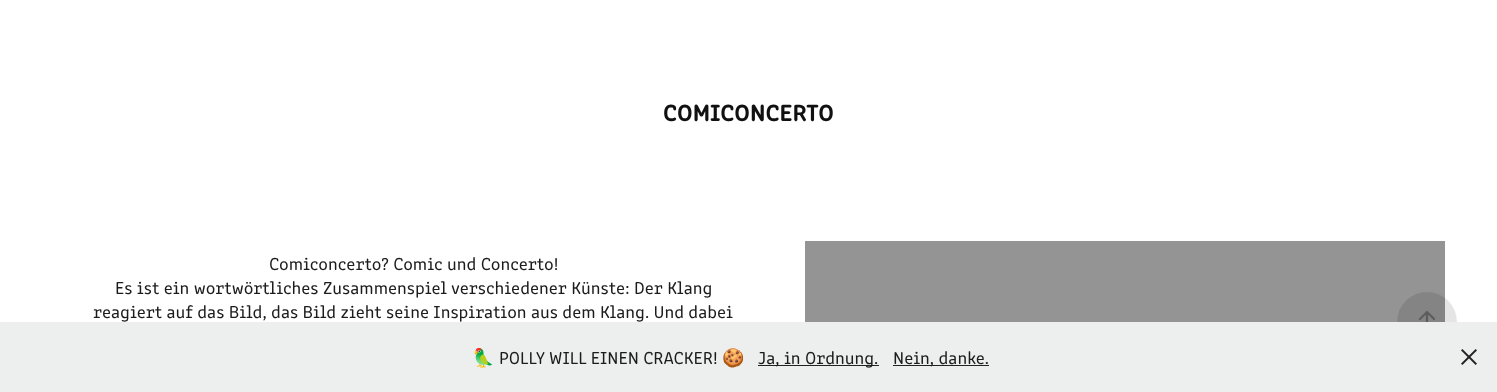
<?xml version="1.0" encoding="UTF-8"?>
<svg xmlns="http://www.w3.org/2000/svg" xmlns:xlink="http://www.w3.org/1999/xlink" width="1497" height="392">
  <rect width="100%" height="100%" fill="#ffffff" />
  <rect x="805" y="241" width="640" height="81" fill="#949494" />
  <circle cx="1427" cy="322" r="30" fill="#000000" fill-opacity="0.1" />
  <image x="1418" y="311" width="17" height="11" xlink:href="image1.png" />
  <rect y="322" width="1497" height="70" fill="#edeeee" />
  <rect x="758" y="365" width="121" height="1" fill="#212121" />
  <rect x="893" y="365" width="96" height="1" fill="#212121" />
  <image x="1461" y="349" width="16" height="16" xlink:href="image2.png" />
  <text x="663" y="121" style="font-family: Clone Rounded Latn; font-size: 24px; font-weight: bold; fill: #111111">COMICONCERTO</text>
  <text x="269" y="270" style="font-family: Clone Rounded Latn; font-size: 18px; fill: #1c1c1c">Comiconcerto? Comic und Concerto!</text>
  <text x="115" y="294" style="font-family: Clone Rounded Latn; font-size: 18px; fill: #1c1c1c">Es ist ein wortwörtliches Zusammenspiel verschiedener Künste: Der Klang</text>
  <text x="93" y="318" style="font-family: Clone Rounded Latn; font-size: 18px; fill: #1c1c1c">reagiert auf das Bild, das Bild zieht seine Inspiration aus dem Klang. Und dabei</text>
  <text x="472" y="364" style="font-family: Noto Color Emoji; font-size: 18px; fill: #1c1c1c">🦜</text>
  <text x="499" y="364" style="font-family: Clone Rounded Latn; font-size: 18px; fill: #1c1c1c">POLLY WILL EINEN CRACKER!</text>
  <text x="722" y="364" style="font-family: Noto Color Emoji; font-size: 18px; fill: #1c1c1c">🍪</text>
  <text x="758" y="364" style="font-family: Clone Rounded Latn; font-size: 18px; fill: #1c1c1c">Ja, in Ordnung.</text>
  <text x="893" y="364" style="font-family: Clone Rounded Latn; font-size: 18px; fill: #1c1c1c">Nein, danke.</text>
</svg>
